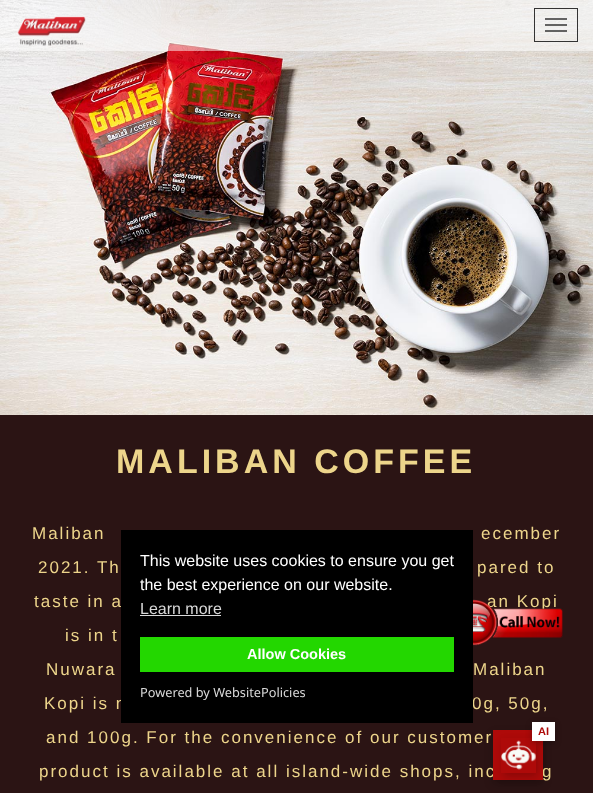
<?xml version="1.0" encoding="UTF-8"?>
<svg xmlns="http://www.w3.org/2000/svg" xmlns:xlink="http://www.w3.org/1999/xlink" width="593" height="793">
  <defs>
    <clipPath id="clip1"><path d="M 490 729 h 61 v 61 h -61 z m 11 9 h 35 v 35 h -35 z" clip-rule="evenodd" /></clipPath>
  </defs>
  <rect width="100%" height="100%" fill="#ffffff" />
  <image x="0" y="0" width="593" height="415" xlink:href="image1.png" />
  <rect width="593" height="51" fill="#ffffff" fill-opacity="0.5" />
  <image x="17" y="16" width="69" height="30" xlink:href="image2.png" />
  <rect x="534.5" y="8.5" width="43" height="33" fill="none" stroke="#333333" />
  <rect x="545" y="18" width="22" height="2" fill="#383838" fill-opacity="0.77" />
  <rect x="545" y="24" width="22" height="2" fill="#383838" fill-opacity="0.77" />
  <rect x="545" y="30" width="22" height="2" fill="#383838" fill-opacity="0.77" />
  <rect y="415" width="593" height="378" fill="#2b1414" />
  <rect x="493" y="734" width="50" height="50" fill="#000000" fill-opacity="0.2" filter="blur(4px)" />
  <text x="116" y="473" style="font-family: Liberation Sans; font-size: 34px; font-weight: bold; letter-spacing: 4px; fill: #edd58b">MALIBAN COFFEE</text>
  <text x="32" y="539" style="font-family: Liberation Sans; font-size: 17px; letter-spacing: 2px; fill: #edd58b">Maliban</text>
  <text x="481" y="539" style="font-family: Liberation Sans; font-size: 17px; letter-spacing: 2px; fill: #edd58b">ecember</text>
  <text x="38" y="573" style="font-family: Liberation Sans; font-size: 17px; letter-spacing: 2px; fill: #edd58b">2021. Th</text>
  <text x="477" y="573" style="font-family: Liberation Sans; font-size: 17px; letter-spacing: 2px; fill: #edd58b">pared to</text>
  <text x="34" y="607" style="font-family: Liberation Sans; font-size: 17px; letter-spacing: 2px; fill: #edd58b">taste in a</text>
  <text x="487" y="607" style="font-family: Liberation Sans; font-size: 17px; letter-spacing: 2px; fill: #edd58b">an Kopi</text>
  <text x="65" y="641" style="font-family: Liberation Sans; font-size: 17px; letter-spacing: 2px; fill: #edd58b">is in t</text>
  <text x="46" y="675" style="font-family: Liberation Sans; font-size: 17px; letter-spacing: 2px; fill: #edd58b">Nuwara</text>
  <text x="473" y="675" style="font-family: Liberation Sans; font-size: 17px; letter-spacing: 2px; fill: #edd58b">Maliban</text>
  <text x="44" y="709" style="font-family: Liberation Sans; font-size: 17px; letter-spacing: 2px; fill: #edd58b">Kopi is n</text>
  <text x="472" y="709" style="font-family: Liberation Sans; font-size: 17px; letter-spacing: 2px; fill: #edd58b">0g, 50g,</text>
  <text x="46" y="743" style="font-family: Liberation Sans; font-size: 17px; letter-spacing: 2px; fill: #edd58b">and 100g. For the convenience of our customer</text>
  <text x="39" y="777" style="font-family: Liberation Sans; font-size: 17px; letter-spacing: 2px; fill: #edd58b">product is available at all island-wide shops, inc</text>
  <text x="542" y="777" style="font-family: Liberation Sans; font-size: 17px; letter-spacing: 2px; fill: #edd58b">g</text>
  <rect x="121" y="530" width="352" height="193" fill="#000000" />
  <text x="140" y="566" style="font-family: Liberation Sans; font-size: 16px; fill: #ffffff">This website uses cookies to ensure you get</text>
  <text x="140" y="590" style="font-family: Liberation Sans; font-size: 16px; fill: #ffffff">the best experience on our website.</text>
  <text x="140" y="614" style="font-family: Liberation Sans; font-size: 16px; fill: #d9d9d9">Learn more</text>
  <rect x="140" y="615" width="81" height="1" fill="#d9d9d9" />
  <rect x="140" y="637" width="314" height="35" fill="#23d700" />
  <text x="247" y="659" style="font-family: Liberation Sans; font-size: 14.5px; font-weight: bold; fill: #ffffff">Allow Cookies</text>
  <text x="140" y="697" style="font-family: Noto Sans; font-size: 12.75px; fill: #d9d9d9">Powered by WebsitePolicies</text>
  <image x="473" y="599" width="90" height="47" xlink:href="image3.png" />
  <rect x="493" y="730" width="50" height="50" fill="#ae0a09" />
  <g clip-path="url(#clip1)">
    <rect x="503" y="742" width="35" height="35" fill="#000000" fill-opacity="0.2" filter="blur(4px)" />
  </g>
  <image x="501" y="740" width="35" height="30" xlink:href="image4.png" />
  <rect x="532" y="724" width="23" height="19" fill="#000000" fill-opacity="0.25" filter="blur(3px)" />
  <rect x="532" y="722" width="23" height="19" fill="#ffffff" />
  <text x="538" y="735" style="font-family: Liberation Sans; font-size: 11px; font-weight: bold; fill: #ae0a09">AI</text>
</svg>
